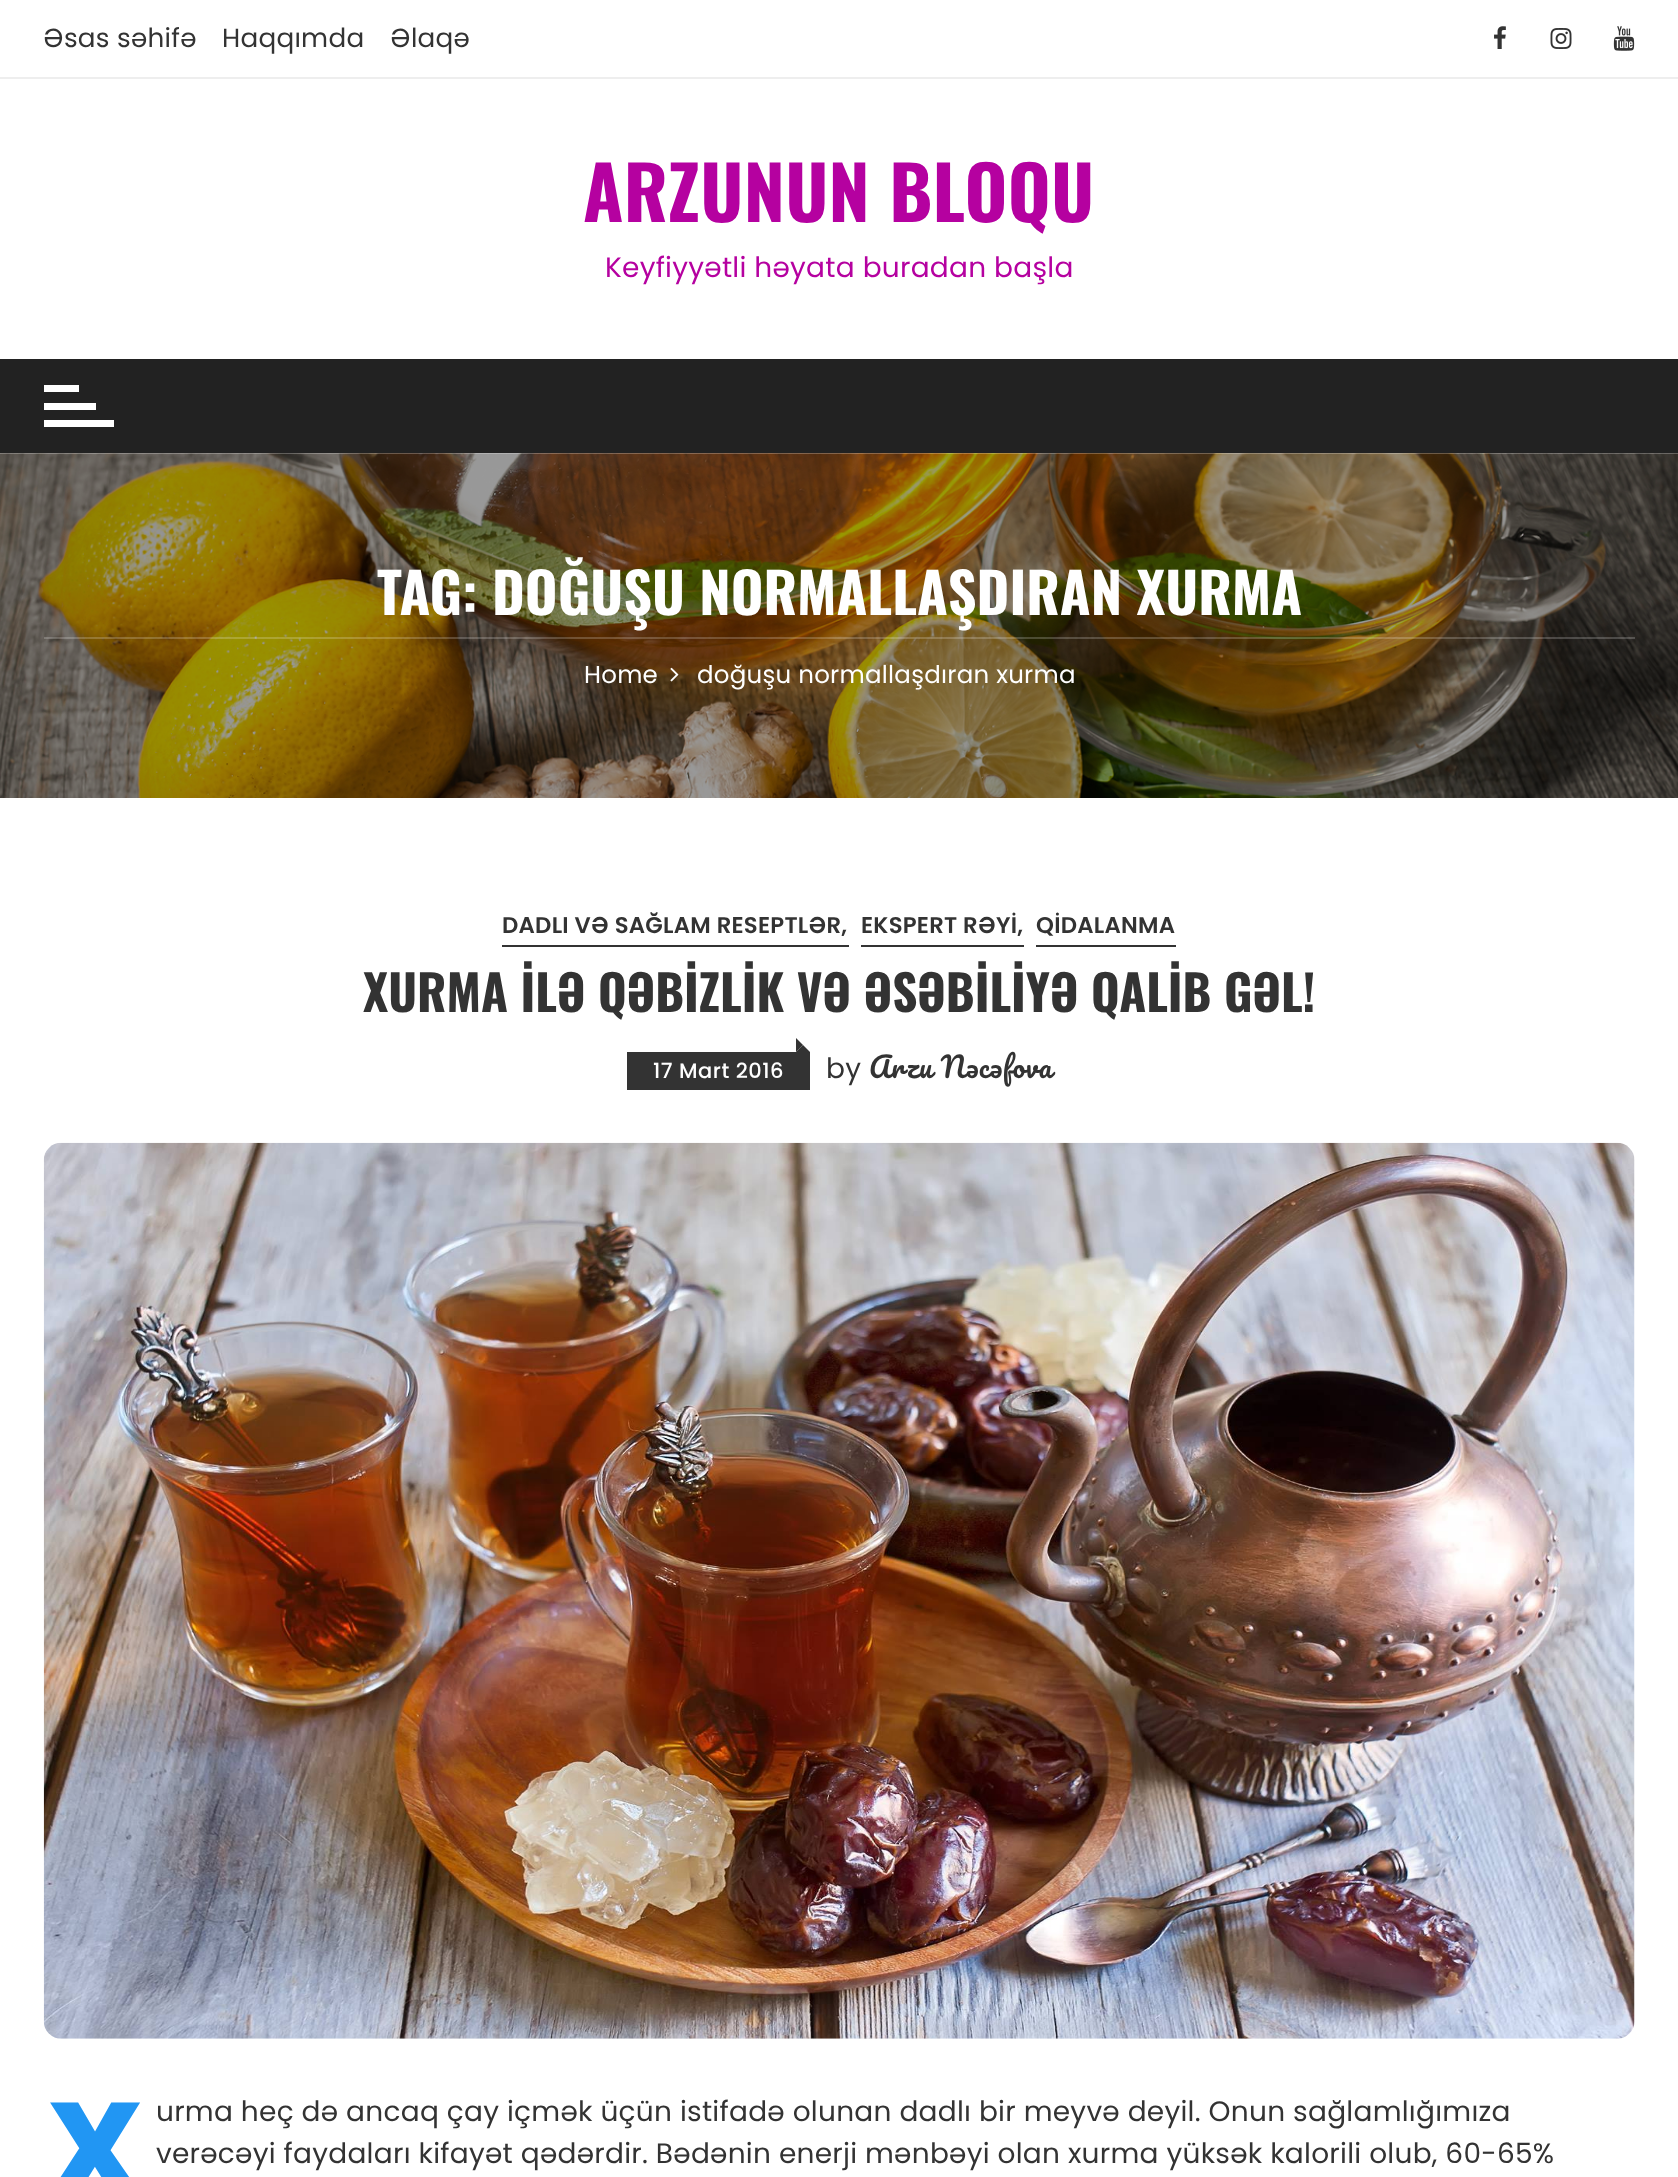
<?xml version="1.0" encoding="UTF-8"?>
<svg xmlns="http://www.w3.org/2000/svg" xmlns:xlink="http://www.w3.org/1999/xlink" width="1678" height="2177">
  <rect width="100%" height="100%" fill="#ffffff" />
  <rect y="77" width="1678" height="2" fill="#eeeeee" />
  <image x="1494" y="26" width="12" height="23" xlink:href="image1.png" />
  <image x="1550" y="28" width="22" height="21" xlink:href="image2.png" />
  <image x="1613" y="26" width="22" height="25" xlink:href="image3.png" />
  <rect y="359" width="1678" height="94" fill="#222222" />
  <rect x="44" y="385" width="35" height="7" fill="#ffffff" />
  <rect x="44" y="403" width="52" height="7" fill="#ffffff" />
  <rect x="44" y="420" width="70" height="7" fill="#ffffff" />
  <image x="0" y="453" width="1678" height="345" xlink:href="image4.png" />
  <rect x="44" y="637" width="1591" height="2" fill="#ffffff" fill-opacity="0.2" />
  <image x="670" y="667" width="9" height="15" xlink:href="image5.png" />
  <rect x="502" y="945" width="347" height="2" fill="#333333" />
  <rect x="861" y="945" width="163" height="2" fill="#333333" />
  <rect x="1036" y="945" width="140" height="2" fill="#333333" />
  <rect x="627" y="1052" width="183" height="38" fill="#333333" />
  <path d="M 810 1052 h -14 l 7 -7 z" fill="#333333" />
  <path d="M 796 1052 v -14 l 7 7 z" fill="#333333" />
  <image x="43" y="1142" width="1592" height="897" xlink:href="image6.png" />
  <text x="43" y="47" style="font-family: Poppins; font-size: 26.25px; letter-spacing: 0.25px; fill: #333333">Əsas səhifə</text>
  <text x="222" y="47" style="font-family: Poppins; font-size: 26.25px; letter-spacing: 0.25px; fill: #333333">Haqqımda</text>
  <text x="390" y="47" style="font-family: Poppins; font-size: 26.25px; letter-spacing: 0.25px; fill: #333333">Əlaqə</text>
  <text x="583" y="222" style="font-family: Oswald; font-size: 73.5px; font-weight: bold; letter-spacing: 0.25px; fill: #b501a0">ARZUNUN BLOQU</text>
  <text x="605" y="277" style="font-family: Poppins; font-size: 28px; letter-spacing: 0.25px; fill: #b501a0">Keyfiyyətli həyata buradan başla</text>
  <text x="377" y="615" style="font-family: Oswald; font-size: 56px; font-weight: bold; fill: #ffffff">TAG: DOĞUŞU NORMALLAŞDIRAN XURMA</text>
  <text x="584" y="683" style="font-family: Poppins; font-size: 24.5px; letter-spacing: 0.25px; fill: #ffffff">Home</text>
  <text x="697" y="683" style="font-family: Poppins; font-size: 24.5px; letter-spacing: 0.25px; fill: #ffffff">doğuşu normallaşdıran xurma</text>
  <text x="502" y="933" style="font-family: Poppins; font-size: 22.75px; font-weight: 600; letter-spacing: 0.25px; fill: #333333">DADLI VƏ SAĞLAM RESEPTLƏR,</text>
  <text x="861" y="933" style="font-family: Poppins; font-size: 22.75px; font-weight: 600; letter-spacing: 0.25px; fill: #333333">EKSPERT RƏYİ,</text>
  <text x="1036" y="933" style="font-family: Poppins; font-size: 22.75px; font-weight: 600; letter-spacing: 0.25px; fill: #333333">QİDALANMA</text>
  <text x="363" y="1012" style="font-family: Oswald; font-size: 49px; font-weight: bold; fill: #333333">XURMA İLƏ QƏBİZLİK VƏ ƏSƏBİLİYƏ QALİB GƏL!</text>
  <text x="653" y="1078" style="font-family: Poppins; font-size: 21px; font-weight: 500; letter-spacing: 0.5px; fill: #ffffff">17 Mart 2016</text>
  <text x="826" y="1078" style="font-family: Poppins; font-size: 28px; letter-spacing: 0.25px; fill: #333333">by</text>
  <text x="869" y="1078" word-spacing="1" style="font-family: Pacifico; font-size: 28px; letter-spacing: 0.25px; fill: #333333">Arzu Nəcəfova</text>
  <text x="48" y="2196" style="font-family: Noto Sans; font-size: 131px; font-weight: 900; letter-spacing: 0.25px; fill: #2196f3">X</text>
  <text x="156" y="2121" style="font-family: Poppins; font-size: 28px; letter-spacing: 0.25px; fill: #333333">urma heç də ancaq çay içmək üçün istifadə olunan dadlı bir meyvə deyil. Onun sağlamlığımıza</text>
  <text x="156" y="2163" style="font-family: Poppins; font-size: 28px; letter-spacing: 0.25px; fill: #333333">verəcəyi faydaları kifayət qədərdir. Bədənin enerji mənbəyi olan xurma yüksək kalorili olub, 60-65%</text>
</svg>
